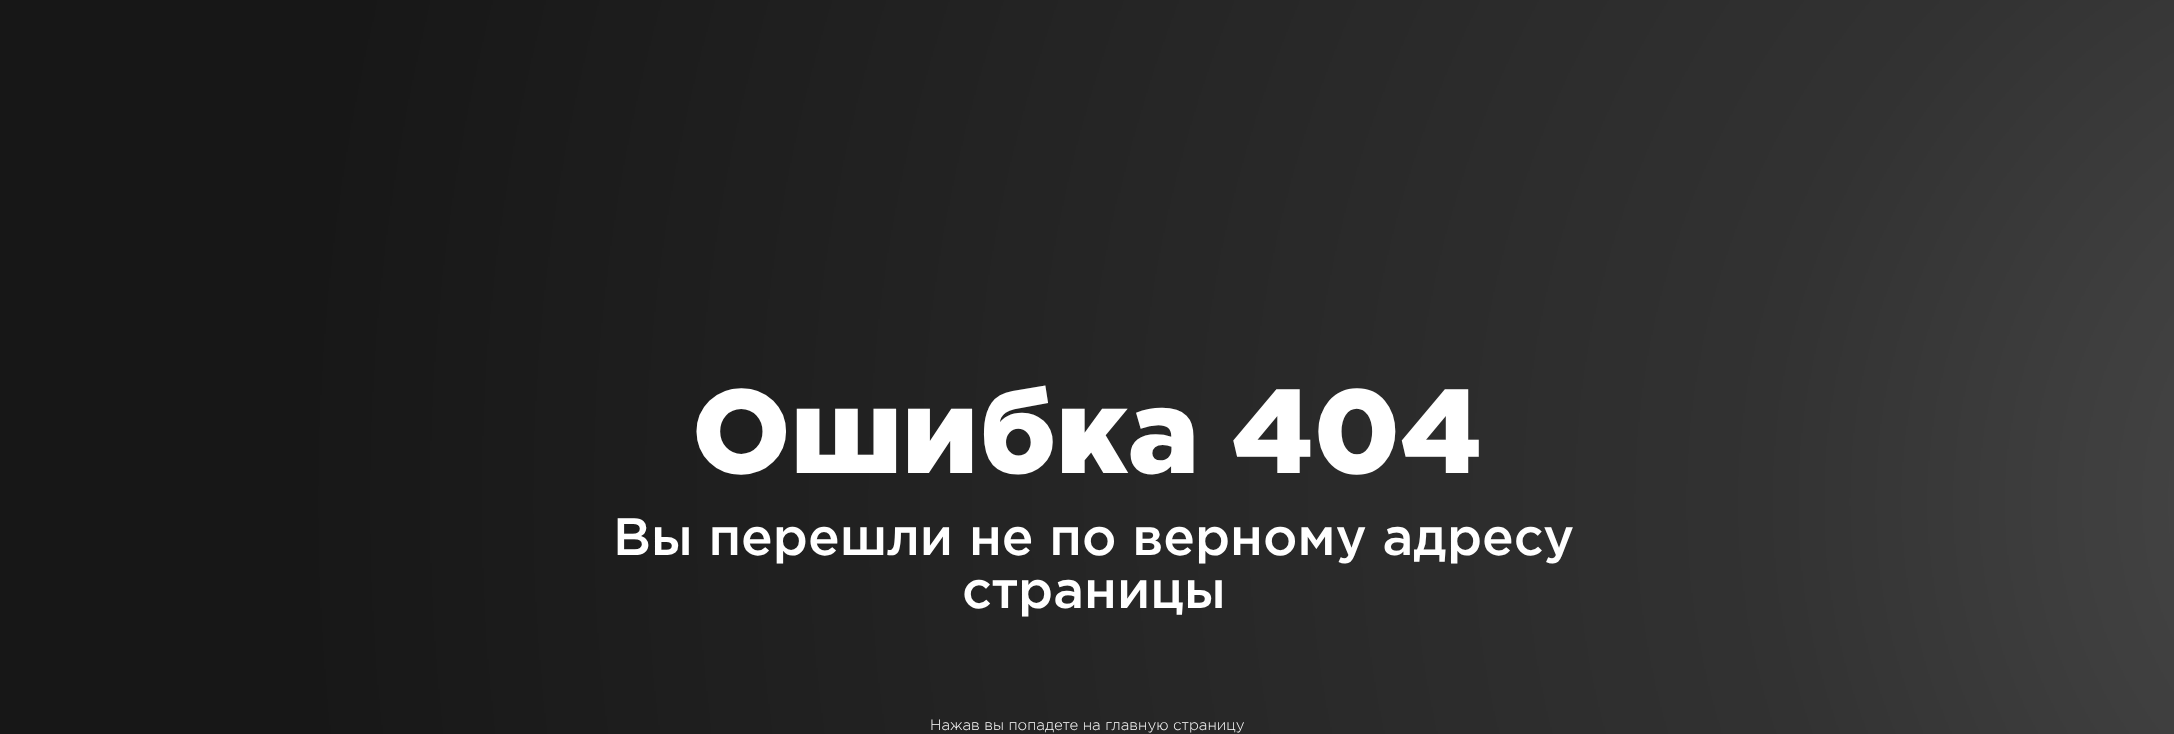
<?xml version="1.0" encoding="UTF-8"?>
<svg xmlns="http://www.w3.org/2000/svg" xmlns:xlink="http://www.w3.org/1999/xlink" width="2174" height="734">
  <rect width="100%" height="100%" fill="#ffffff" />
  <image x="0" y="0" width="2174" height="734" xlink:href="image1.png" />
  <text x="692" y="473" style="font-family: Gotham; font-size: 118.75px; font-weight: 900; fill: #ffffff">Ошибка 404</text>
  <text x="613" y="555" style="font-family: Gotham; font-size: 52.5px; font-weight: 500; fill: #ffffff">Вы перешли не по верному адресу</text>
  <text x="962" y="608" style="font-family: Gotham; font-size: 52.5px; font-weight: 500; fill: #ffffff">страницы</text>
  <text x="930" y="730" style="font-family: Gotham; font-size: 15px; font-weight: 300; fill: #ffffff">Нажав вы попадете на главную страницу</text>
</svg>
